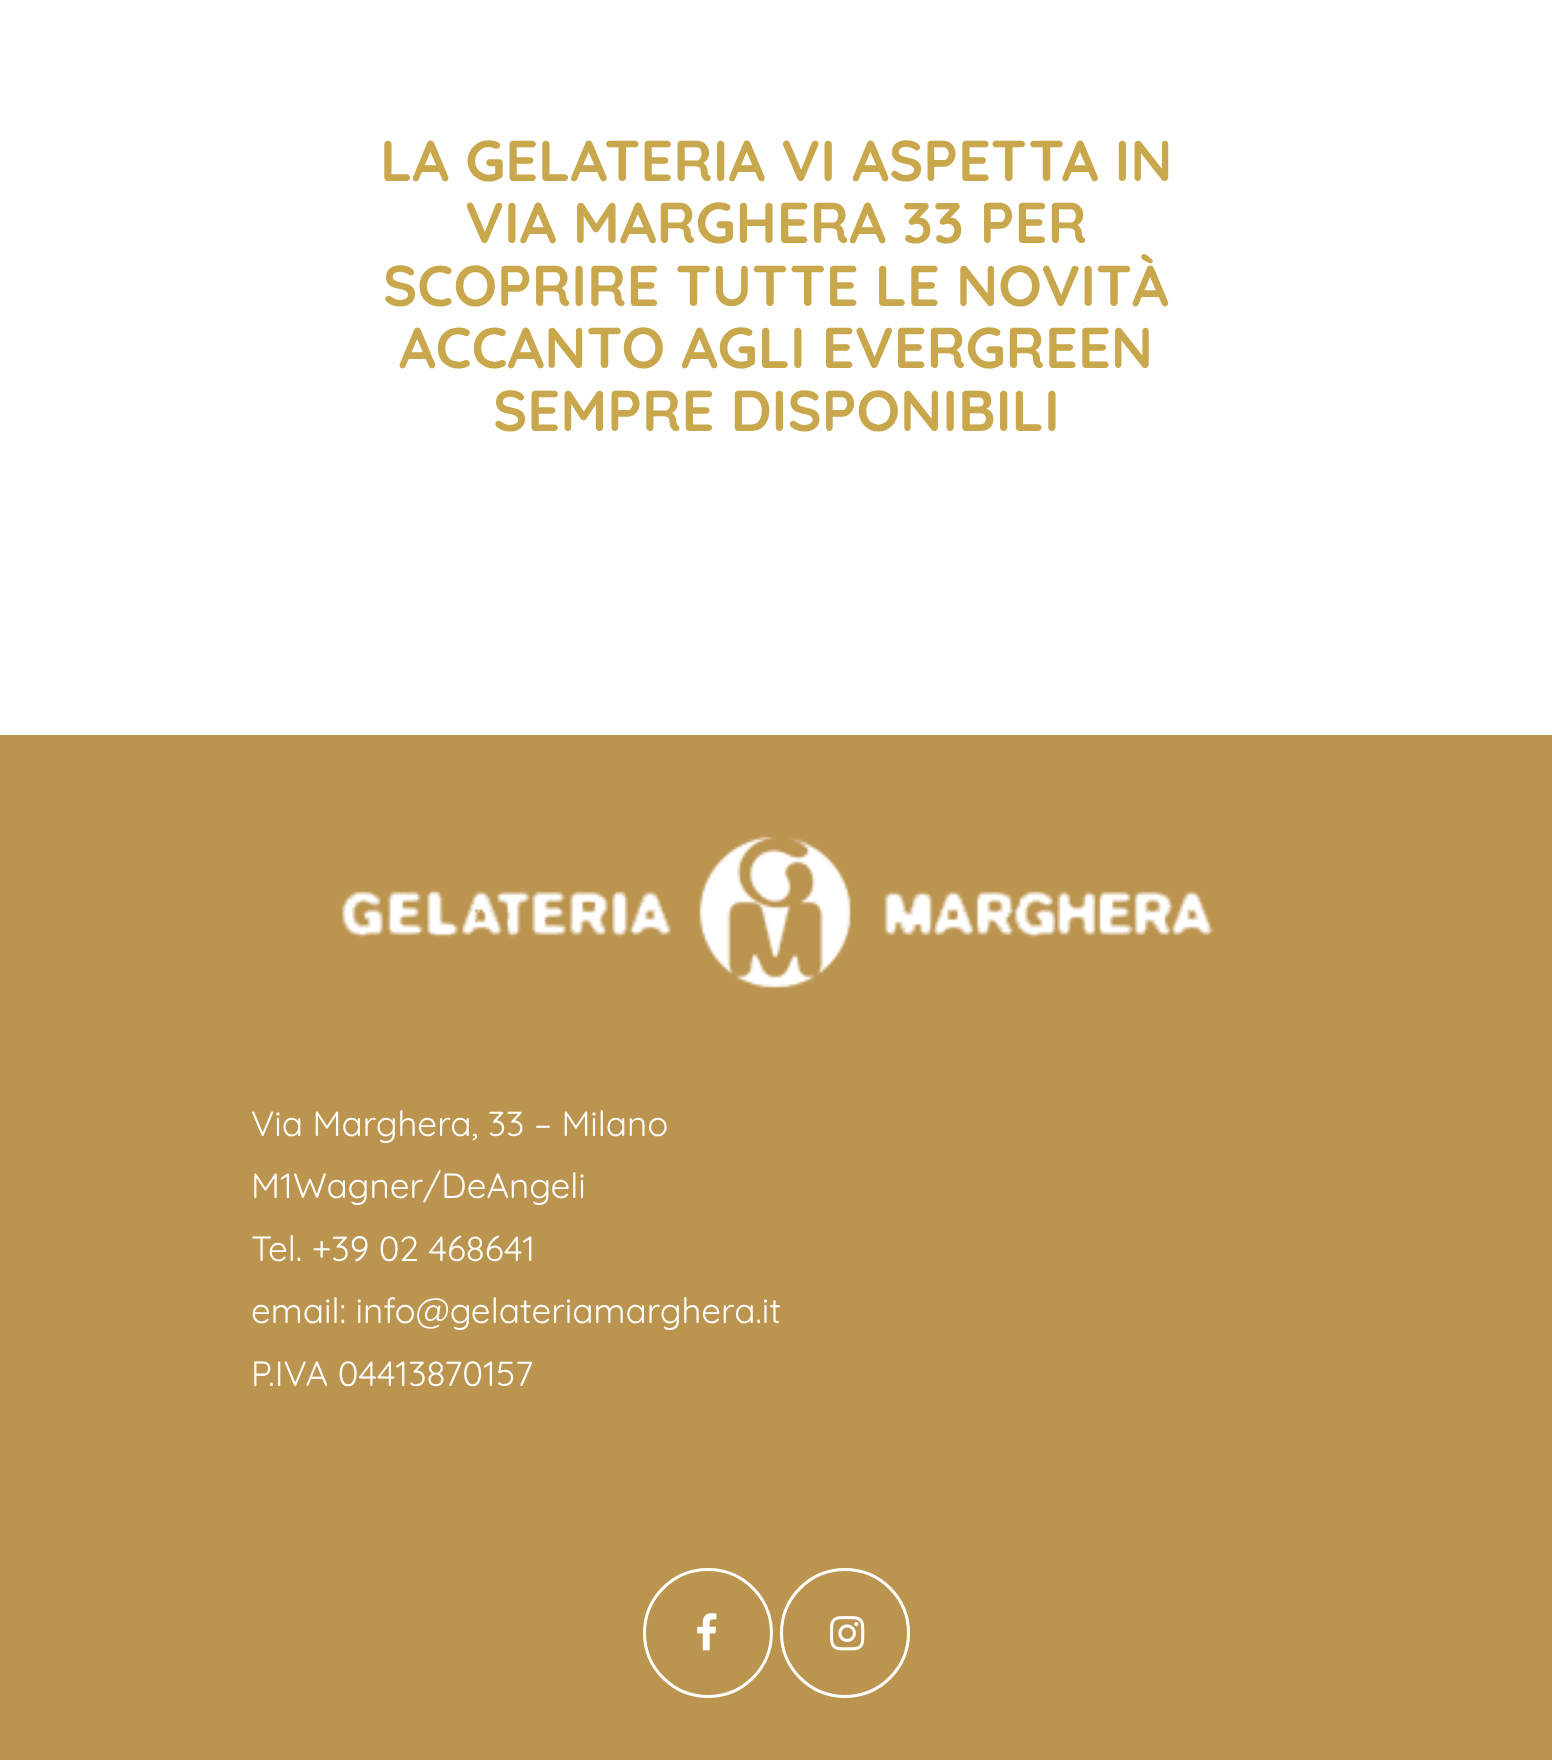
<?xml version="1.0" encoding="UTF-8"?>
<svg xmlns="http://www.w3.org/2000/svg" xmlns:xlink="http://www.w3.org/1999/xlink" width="1552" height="1760">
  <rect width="100%" height="100%" fill="#ffffff" />
  <rect y="735" width="1552" height="1025" fill="#bb944f" />
  <image x="341" y="836" width="873" height="152" xlink:href="image1.png" />
  <circle cx="708" cy="1633" r="63.5" fill="none" stroke="#ffffff" stroke-width="3" />
  <image x="697" y="1613" width="20" height="38" xlink:href="image2.png" />
  <circle cx="845" cy="1633" r="63.5" fill="none" stroke="#ffffff" stroke-width="3" />
  <image x="830" y="1616" width="35" height="35" xlink:href="image3.png" />
  <text x="380" y="181" style="font-family: Quicksand; font-size: 57.5px; font-weight: bold; fill: #c9a74d">LA GELATERIA VI ASPETTA IN</text>
  <text x="465" y="243" style="font-family: Quicksand; font-size: 57.5px; font-weight: bold; fill: #c9a74d">VIA MARGHERA 33 PER</text>
  <text x="383" y="306" style="font-family: Quicksand; font-size: 57.5px; font-weight: bold; fill: #c9a74d">SCOPRIRE TUTTE LE NOVITÀ</text>
  <text x="399" y="368" style="font-family: Quicksand; font-size: 57.5px; font-weight: bold; fill: #c9a74d">ACCANTO AGLI EVERGREEN</text>
  <text x="493" y="431" style="font-family: Quicksand; font-size: 57.5px; font-weight: bold; fill: #c9a74d">SEMPRE DISPONIBILI</text>
  <text x="251" y="1136" style="font-family: Quicksand; font-size: 35px; font-weight: 300; fill: #ffffff">Via Marghera, 33 – Milano</text>
  <text x="251" y="1198" style="font-family: Quicksand; font-size: 35px; font-weight: 300; fill: #ffffff">M1Wagner/DeAngeli</text>
  <text x="251" y="1261" style="font-family: Quicksand; font-size: 35px; font-weight: 300; fill: #ffffff">Tel. +39 02 468641</text>
  <text x="251" y="1323" style="font-family: Quicksand; font-size: 35px; font-weight: 300; fill: #ffffff">email: info@gelateriamarghera.it</text>
  <text x="251" y="1386" style="font-family: Quicksand; font-size: 35px; font-weight: 300; fill: #ffffff">P.IVA 04413870157</text>
</svg>
